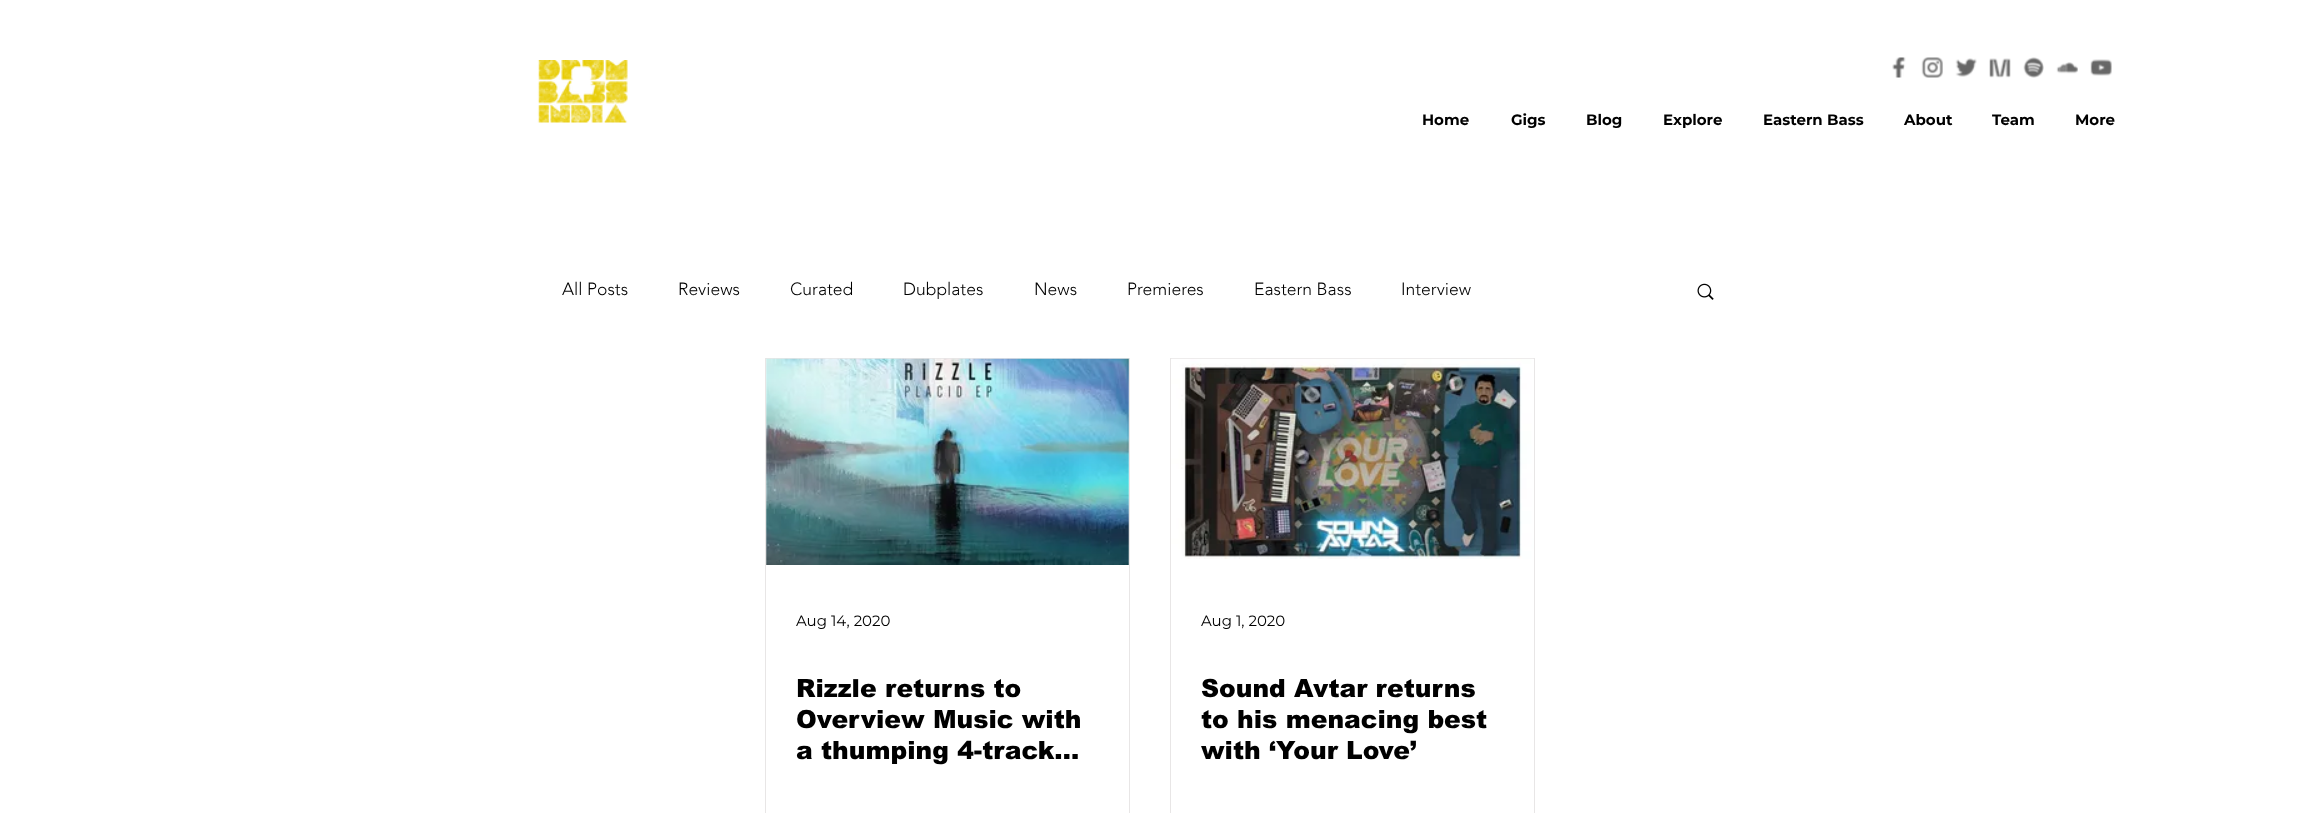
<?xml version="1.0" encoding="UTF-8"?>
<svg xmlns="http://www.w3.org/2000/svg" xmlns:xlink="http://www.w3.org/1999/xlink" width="2298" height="813">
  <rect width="100%" height="100%" fill="#ffffff" />
  <image x="537" y="60" width="91" height="63" xlink:href="image1.png" />
  <image x="1892" y="57" width="14" height="21" xlink:href="image2.png" />
  <image x="1921" y="57" width="22" height="21" xlink:href="image3.png" />
  <image x="1955" y="58" width="22" height="19" xlink:href="image4.png" />
  <image x="1989" y="58" width="22" height="20" xlink:href="image5.png" />
  <image x="2023" y="57" width="21" height="21" xlink:href="image6.png" />
  <image x="2056" y="62" width="22" height="12" xlink:href="image7.png" />
  <image x="2090" y="59" width="22" height="17" xlink:href="image8.png" />
  <image x="1697" y="283" width="17" height="17" xlink:href="image9.png" />
  <rect x="765.5" y="358.5" width="364" height="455" fill="none" stroke="#e8e6e6" />
  <image x="766" y="358" width="363" height="207" xlink:href="image10.png" />
  <rect x="1170.5" y="358.5" width="364" height="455" fill="none" stroke="#e8e6e6" />
  <image x="1171" y="358" width="363" height="201" xlink:href="image11.png" />
  <text x="1422" y="125" style="font-family: Montserrat; font-size: 15px; font-weight: bold; fill: #000000">Home</text>
  <text x="1511" y="125" style="font-family: Montserrat; font-size: 15px; font-weight: bold; fill: #000000">Gigs</text>
  <text x="1586" y="125" style="font-family: Montserrat; font-size: 15px; font-weight: bold; fill: #000000">Blog</text>
  <text x="1663" y="125" style="font-family: Montserrat; font-size: 15px; font-weight: bold; fill: #000000">Explore</text>
  <text x="1763" y="125" style="font-family: Montserrat; font-size: 15px; font-weight: bold; fill: #000000">Eastern Bass</text>
  <text x="1904" y="125" style="font-family: Montserrat; font-size: 15px; font-weight: bold; fill: #000000">About</text>
  <text x="1992" y="125" style="font-family: Montserrat; font-size: 15px; font-weight: bold; fill: #000000">Team</text>
  <text x="2075" y="125" style="font-family: Montserrat; font-size: 15px; font-weight: bold; fill: #000000">More</text>
  <text x="562" y="295" style="font-family: 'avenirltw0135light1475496'; font-size: 17.5px; font-weight: 300; fill: #000000">All Posts</text>
  <text x="678" y="295" style="font-family: 'avenirltw0135light1475496'; font-size: 17.5px; font-weight: 300; fill: #000000">Reviews</text>
  <text x="790" y="295" style="font-family: 'avenirltw0135light1475496'; font-size: 17.5px; font-weight: 300; fill: #000000">Curated</text>
  <text x="903" y="295" style="font-family: 'avenirltw0135light1475496'; font-size: 17.5px; font-weight: 300; fill: #000000">Dubplates</text>
  <text x="1034" y="295" style="font-family: 'avenirltw0135light1475496'; font-size: 17.5px; font-weight: 300; fill: #000000">News</text>
  <text x="1127" y="295" style="font-family: 'avenirltw0135light1475496'; font-size: 17.5px; font-weight: 300; fill: #000000">Premieres</text>
  <text x="1254" y="295" style="font-family: 'avenirltw0135light1475496'; font-size: 17.5px; font-weight: 300; fill: #000000">Eastern Bass</text>
  <text x="1401" y="295" style="font-family: 'avenirltw0135light1475496'; font-size: 17.5px; font-weight: 300; fill: #000000">Interview</text>
  <text x="796" y="626" style="font-family: Montserrat; font-size: 15px; fill: #000000">Aug 14, 2020</text>
  <text x="796" y="697" style="font-family: arial; font-size: 25px; font-weight: 900; fill: #000000">Rizzle returns to</text>
  <text x="796" y="728" style="font-family: arial; font-size: 25px; font-weight: 900; fill: #000000">Overview Music with</text>
  <text x="796" y="759" style="font-family: arial; font-size: 25px; font-weight: 900; fill: #000000">a thumping 4-track…</text>
  <text x="1201" y="626" style="font-family: Montserrat; font-size: 15px; fill: #000000">Aug 1, 2020</text>
  <text x="1201" y="697" style="font-family: arial; font-size: 25px; font-weight: 900; fill: #000000">Sound Avtar returns</text>
  <text x="1201" y="728" style="font-family: arial; font-size: 25px; font-weight: 900; fill: #000000">to his menacing best</text>
  <text x="1201" y="759" style="font-family: arial; font-size: 25px; font-weight: 900; fill: #000000">with ‘Your Love’</text>
</svg>
